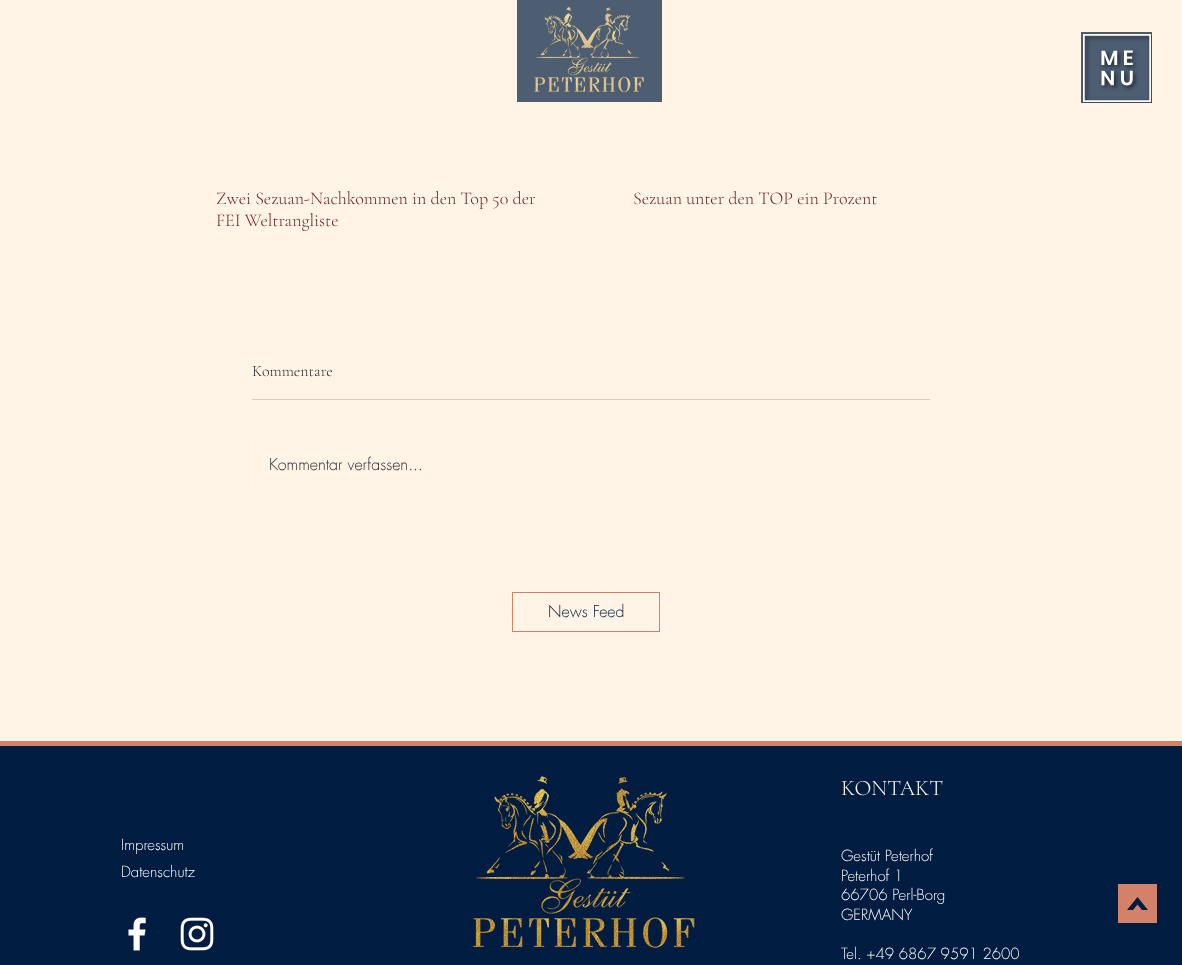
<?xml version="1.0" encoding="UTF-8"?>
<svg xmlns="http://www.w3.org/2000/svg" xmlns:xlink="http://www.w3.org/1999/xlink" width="1182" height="965">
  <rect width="100%" height="100%" fill="#fff4e5" />
  <rect x="517" width="145" height="102" fill="#4d5d72" />
  <image x="534" y="7" width="110" height="85" xlink:href="image1.png" />
  <rect x="1081" y="32" width="71" height="71" fill="#4d5d72" />
  <image x="1082" y="33" width="70" height="70" xlink:href="image2.png" />
  <rect x="252" y="399" width="678" height="1" fill="#d5ccc0" />
  <rect x="252.5" y="436.5" width="677" height="57" fill="none" stroke="#fff7ed" />
  <rect x="512.5" y="592.5" width="147" height="39" fill="none" stroke="#d4816a" />
  <rect y="741" width="1182" height="5" fill="#d4816a" />
  <rect y="746" width="1182" height="219" fill="#001c40" />
  <image x="473" y="776" width="222" height="172" xlink:href="image3.png" />
  <image x="128" y="917" width="18" height="34" xlink:href="image4.png" />
  <image x="180" y="917" width="34" height="34" xlink:href="image5.png" />
  <path d="M 1118 884 v 39 h 39 v -39 z m 24 26 l -4.5 -5.5 l -4.5 5.5 h -6 l 10.5 -13 l 10.5 13 z" fill="#d4816a" />
  <text x="216" y="204" style="font-family: Cormorant Garamond; font-size: 18px; font-weight: 300; fill: #681e23">Zwei Sezuan-Nachkommen in den Top 50 der</text>
  <text x="216" y="226" style="font-family: Cormorant Garamond; font-size: 18px; font-weight: 300; fill: #681e23">FEI Weltrangliste</text>
  <text x="633" y="204" style="font-family: Cormorant Garamond; font-size: 18px; font-weight: 300; fill: #681e23">Sezuan unter den TOP ein Prozent</text>
  <text x="252" y="376" style="font-family: Cormorant Garamond; font-size: 16px; font-weight: 300; fill: #2b2b2b">Kommentare</text>
  <text x="269" y="470" style="font-family: futura; font-size: 16px; font-weight: 300; fill: #2b2b2b">Kommentar verfassen...</text>
  <text x="548" y="617" style="font-family: futura; font-size: 16px; font-weight: 300; fill: #001c40">News Feed</text>
  <text x="841" y="795" style="font-family: Cormorant Garamond; font-size: 22px; font-weight: 300; fill: #ffffff">KONTAKT</text>
  <text x="121" y="850" style="font-family: futura; font-size: 15px; font-weight: 300; fill: #ffffff">Impressum</text>
  <text x="121" y="877" style="font-family: futura; font-size: 15px; font-weight: 300; fill: #ffffff">Datenschutz</text>
  <text x="841" y="861" style="font-family: futura; font-size: 15px; font-weight: 300; fill: #ffffff">Gestüt Peterhof</text>
  <text x="841" y="881" style="font-family: futura; font-size: 15px; font-weight: 300; fill: #ffffff">Peterhof 1</text>
  <text x="841" y="900" style="font-family: futura; font-size: 15px; font-weight: 300; fill: #ffffff">66706 Perl-Borg</text>
  <text x="841" y="920" style="font-family: futura; font-size: 15px; font-weight: 300; fill: #ffffff">GERMANY</text>
  <text x="841" y="959" style="font-family: futura; font-size: 15px; font-weight: 300; fill: #ffffff">Tel. +49 6867 9591 2600</text>
</svg>
